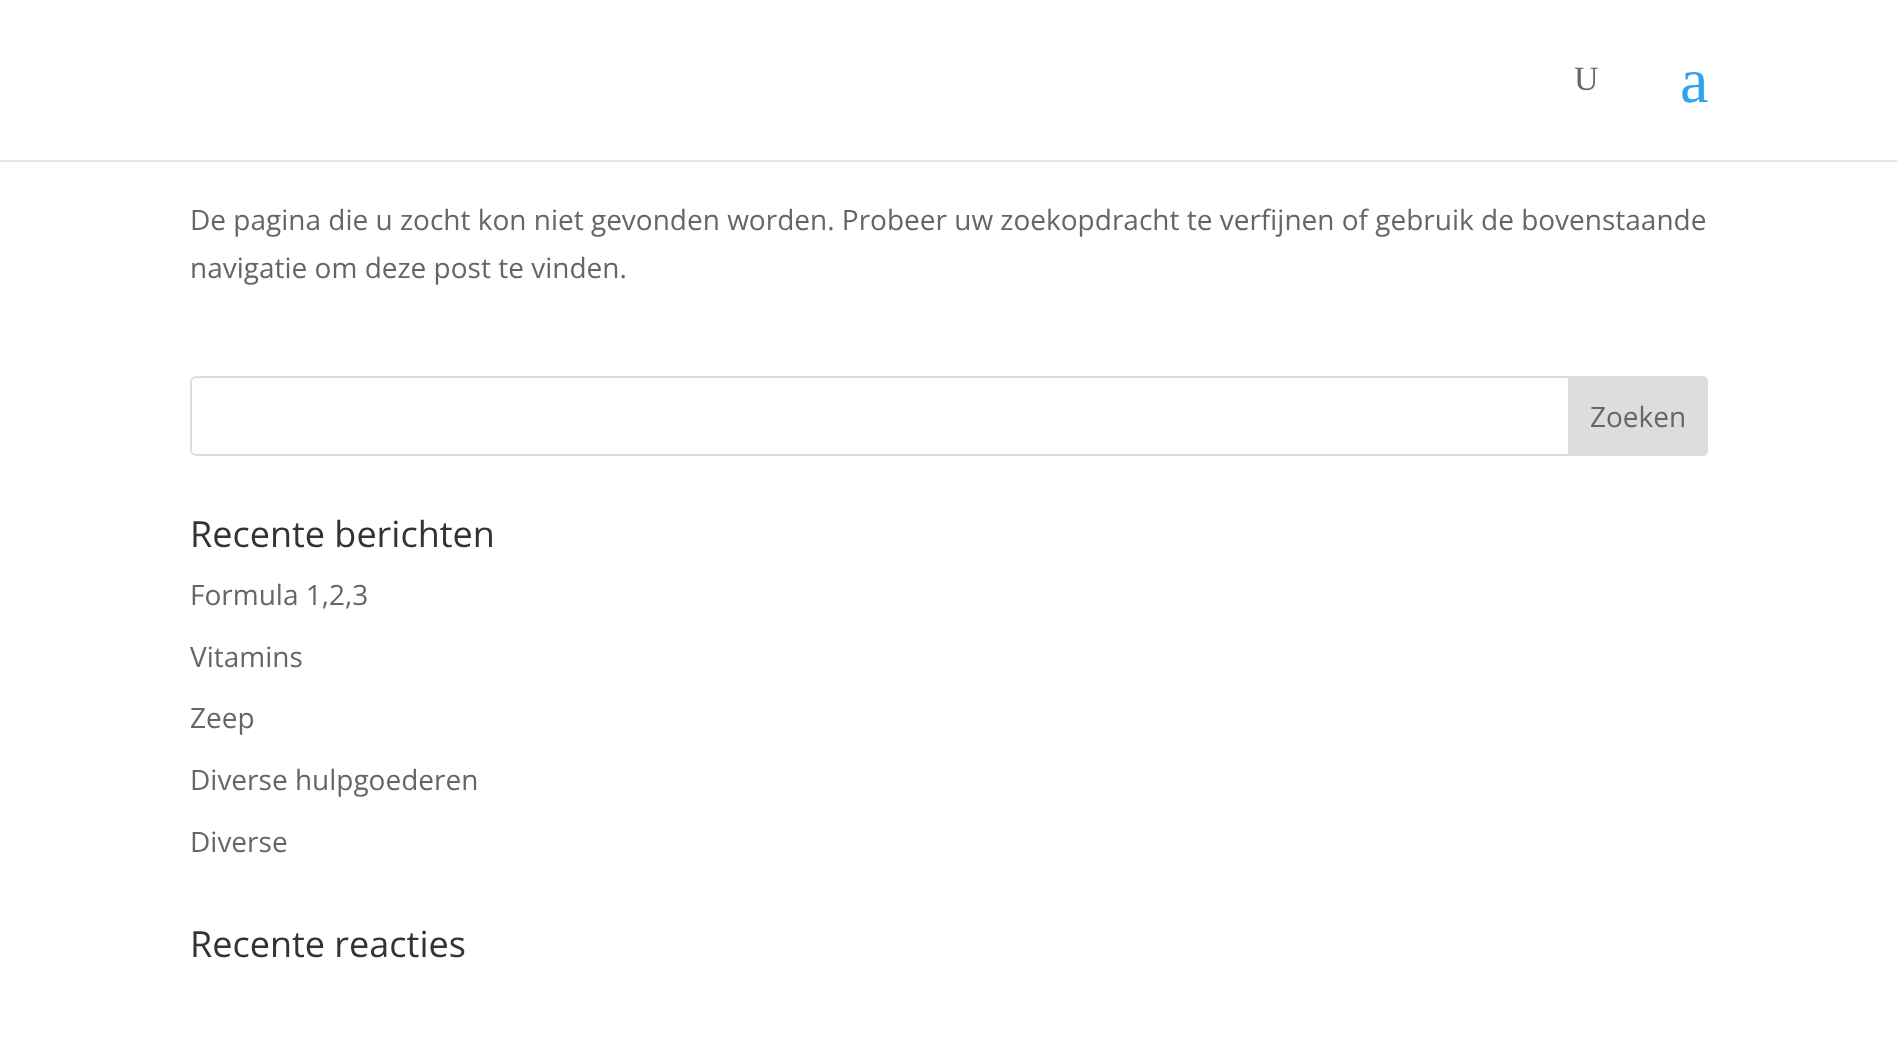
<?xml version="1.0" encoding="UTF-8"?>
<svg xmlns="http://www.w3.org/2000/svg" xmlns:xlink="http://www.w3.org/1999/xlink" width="1897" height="1039">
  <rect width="100%" height="100%" fill="#ffffff" />
  <rect y="160" width="1897" height="2" fill="#000000" fill-opacity="0.1" />
  <rect x="191" y="377" width="1516" height="78" rx="5" fill="none" stroke="#dddddd" stroke-width="2" />
  <path d="M 1569 377 h 133 c 3 0 5 2 5 5 v 68 c 0 3 -2 5 -5 5 h -133 z" fill="#dddddd" stroke="#dddddd" stroke-width="2" />
  <text x="1574" y="90" style="font-family: Liberation Serif; font-size: 34px; fill: #666666">U</text>
  <text x="1680" y="102" style="font-family: Liberation Serif; font-size: 64px; fill: #2ea3f2">a</text>
  <text x="190" y="230" style="font-family: Open Sans; font-size: 28px; fill: #666666">De pagina die u zocht kon niet gevonden worden. Probeer uw zoekopdracht te verfijnen of gebruik de bovenstaande</text>
  <text x="190" y="278" style="font-family: Open Sans; font-size: 28px; fill: #666666">navigatie om deze post te vinden.</text>
  <text x="1590" y="427" style="font-family: Open Sans; font-size: 28px; fill: #666666">Zoeken</text>
  <text x="190" y="547" style="font-family: Open Sans; font-size: 36px; fill: #333333">Recente berichten</text>
  <text x="190" y="605" style="font-family: Open Sans; font-size: 28px; fill: #666666">Formula 1,2,3</text>
  <text x="190" y="667" style="font-family: Open Sans; font-size: 28px; fill: #666666">Vitamins</text>
  <text x="190" y="728" style="font-family: Open Sans; font-size: 28px; fill: #666666">Zeep</text>
  <text x="190" y="790" style="font-family: Open Sans; font-size: 28px; fill: #666666">Diverse hulpgoederen</text>
  <text x="190" y="852" style="font-family: Open Sans; font-size: 28px; fill: #666666">Diverse</text>
  <text x="190" y="957" style="font-family: Open Sans; font-size: 36px; fill: #333333">Recente reacties</text>
</svg>
